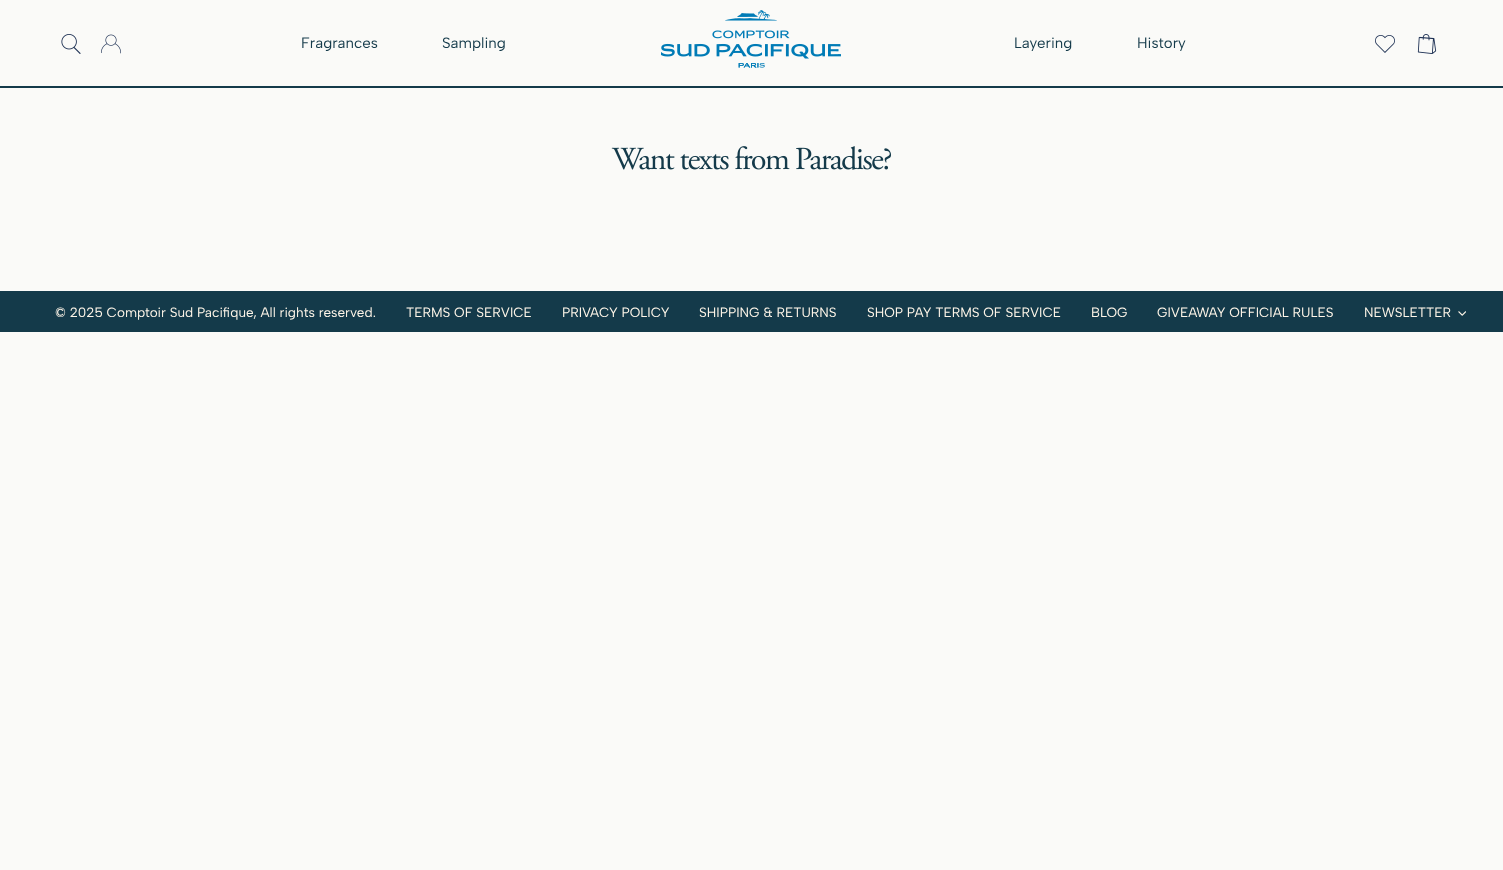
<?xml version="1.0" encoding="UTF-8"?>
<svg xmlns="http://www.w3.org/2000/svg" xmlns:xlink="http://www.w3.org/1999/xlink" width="1503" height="870">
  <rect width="100%" height="100%" fill="#fafaf8" />
  <rect y="86" width="1503" height="2" fill="#143a4a" />
  <image x="61" y="34" width="20" height="20" xlink:href="image1.png" />
  <image x="101" y="34" width="20" height="20" xlink:href="image2.png" />
  <image x="661" y="10" width="180" height="58" xlink:href="image3.png" />
  <image x="1375" y="35" width="20" height="18" xlink:href="image4.png" />
  <image x="1417" y="34" width="20" height="20" xlink:href="image5.png" />
  <image x="611" y="146" width="280" height="24" xlink:href="image6.png" />
  <rect y="291" width="1503" height="41" fill="#143a4a" />
  <image x="1458" y="311" width="8" height="5" xlink:href="image7.png" />
  <text x="301" y="48" style="font-family: Albert Sans; font-size: 15px; fill: #143a4a">Fragrances</text>
  <text x="442" y="48" style="font-family: Albert Sans; font-size: 15px; fill: #143a4a">Sampling</text>
  <text x="1014" y="48" style="font-family: Albert Sans; font-size: 15px; fill: #143a4a">Layering</text>
  <text x="1137" y="48" style="font-family: Albert Sans; font-size: 15px; fill: #143a4a">History</text>
  <text x="55" y="317" style="font-family: Albert Sans; font-size: 13.5px; fill: #fff6e9">© 2025 Comptoir Sud Pacifique, All rights reserved.</text>
  <text x="406" y="317" style="font-family: Albert Sans; font-size: 13.5px; fill: #fff6e9">TERMS OF SERVICE</text>
  <text x="562" y="317" style="font-family: Albert Sans; font-size: 13.5px; fill: #fff6e9">PRIVACY POLICY</text>
  <text x="699" y="317" style="font-family: Albert Sans; font-size: 13.5px; fill: #fff6e9">SHIPPING &amp; RETURNS</text>
  <text x="867" y="317" style="font-family: Albert Sans; font-size: 13.5px; fill: #fff6e9">SHOP PAY TERMS OF SERVICE</text>
  <text x="1091" y="317" style="font-family: Albert Sans; font-size: 13.5px; fill: #fff6e9">BLOG</text>
  <text x="1157" y="317" style="font-family: Albert Sans; font-size: 13.5px; fill: #fff6e9">GIVEAWAY OFFICIAL RULES</text>
  <text x="1364" y="317" style="font-family: Albert Sans; font-size: 13.5px; fill: #fff6e9">NEWSLETTER</text>
</svg>
